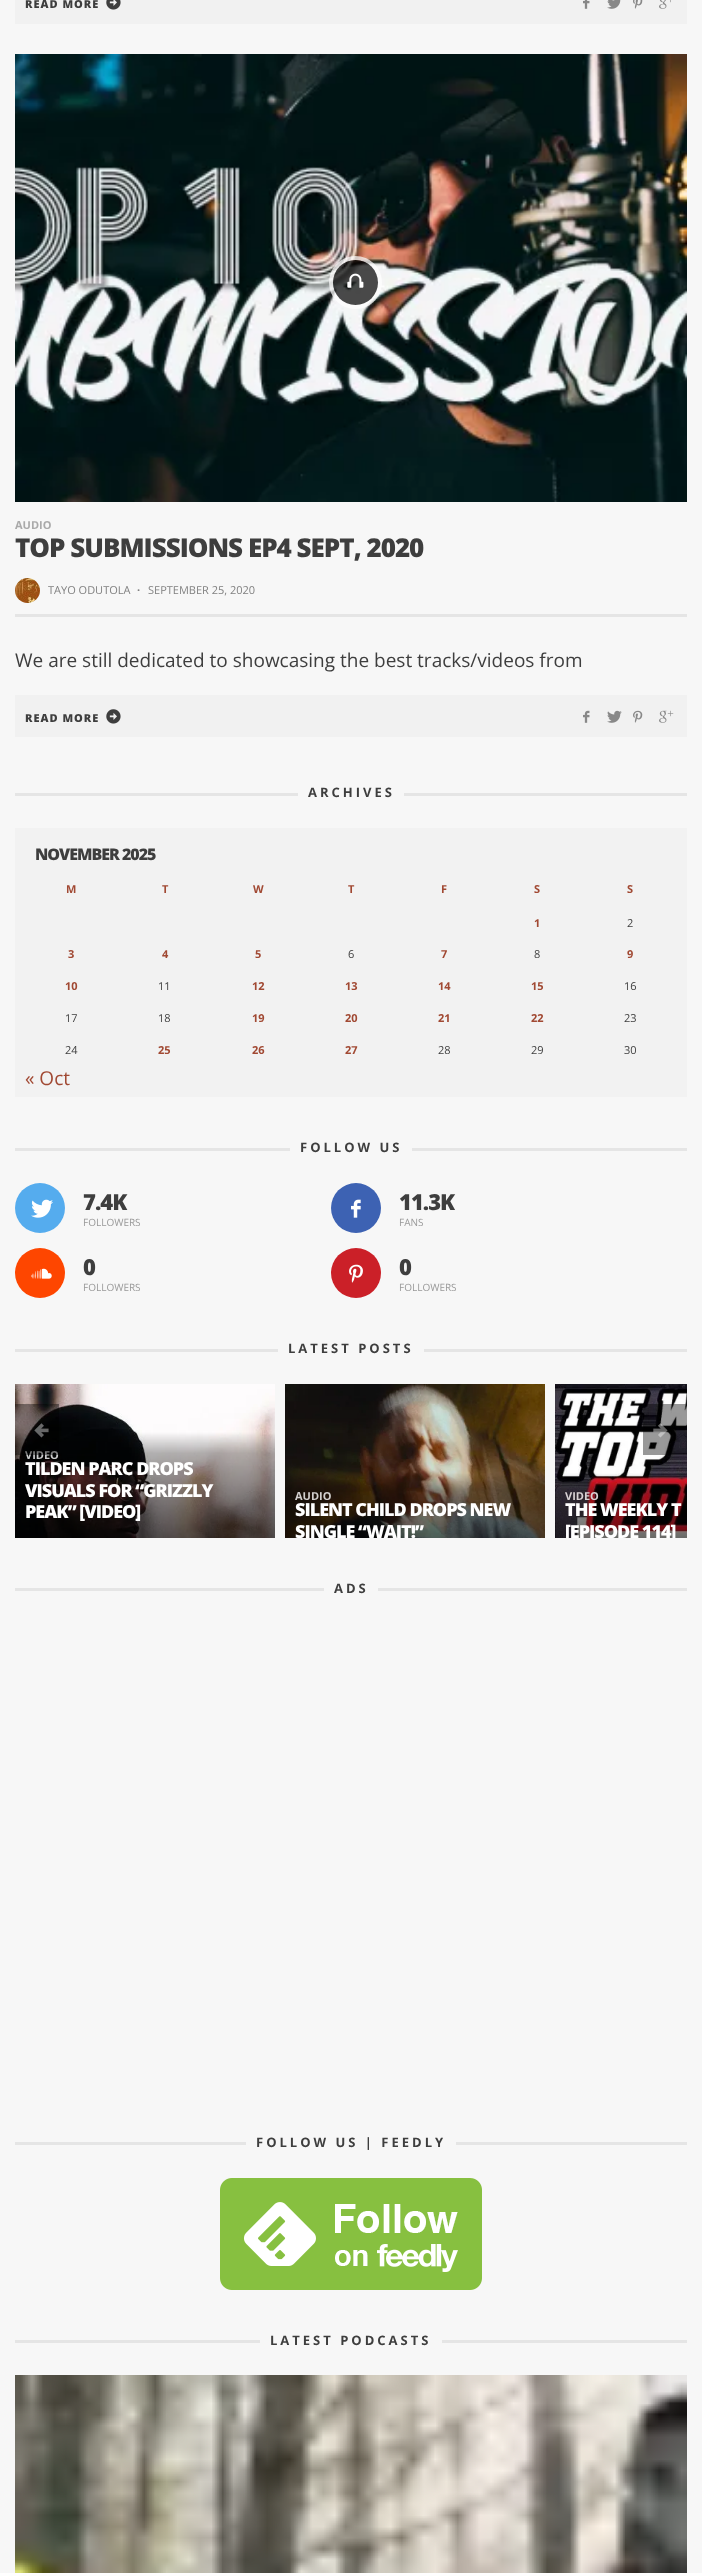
<?xml version="1.0" encoding="UTF-8"?>
<svg xmlns="http://www.w3.org/2000/svg" xmlns:xlink="http://www.w3.org/1999/xlink" width="702" height="2573">
  <defs>
    <clipPath id="clip1"><rect x="15" y="1384" width="672" height="154" /></clipPath>
  </defs>
  <rect width="100%" height="100%" fill="#f7f7f7" />
  <rect x="15" width="672" height="24" fill="#f1f1f1" />
  <image x="106" y="0" width="15" height="10" xlink:href="image1.png" />
  <image x="583" y="0" width="7" height="9" xlink:href="image2.png" />
  <image x="607" y="0" width="14" height="9" xlink:href="image3.png" />
  <image x="633" y="0" width="10" height="9" xlink:href="image4.png" />
  <image x="659" y="0" width="12" height="9" xlink:href="image5.png" />
  <image x="15" y="54" width="672" height="448" xlink:href="image6.png" />
  <circle cx="355.5" cy="282.5" r="24.5" fill="none" stroke="#ffffff" stroke-opacity="0.7" stroke-width="4" />
  <circle cx="355.5" cy="282.5" r="22.5" fill="#000000" fill-opacity="0.7" />
  <image x="347" y="273" width="17" height="15" xlink:href="image7.png" />
  <rect x="15" y="614" width="672" height="3" fill="#e5e5e5" />
  <image x="15" y="578" width="25" height="25" xlink:href="image8.png" />
  <rect x="15" y="695" width="672" height="42" fill="#f1f1f1" />
  <image x="106" y="709" width="15" height="15" xlink:href="image9.png" />
  <image x="583" y="710" width="7" height="13" xlink:href="image10.png" />
  <image x="607" y="710" width="15" height="13" xlink:href="image11.png" />
  <image x="633" y="710" width="10" height="13" xlink:href="image12.png" />
  <image x="659" y="710" width="15" height="13" xlink:href="image13.png" />
  <rect x="15" y="793" width="283" height="3" fill="#e5e5e5" />
  <rect x="404" y="793" width="283" height="3" fill="#e5e5e5" />
  <rect x="15" y="828" width="672" height="269" fill="#f2f2f2" />
  <rect x="15" y="1148" width="275" height="3" fill="#e5e5e5" />
  <rect x="412" y="1148" width="275" height="3" fill="#e5e5e5" />
  <circle cx="40" cy="1208" r="25" fill="#55acee" />
  <image x="31" y="1199" width="22" height="19" xlink:href="image14.png" />
  <circle cx="356" cy="1208" r="25" fill="#3d62b3" />
  <image x="351" y="1199" width="10" height="19" xlink:href="image15.png" />
  <circle cx="40" cy="1273" r="25" fill="#fe4600" />
  <image x="31" y="1268" width="21" height="11" xlink:href="image16.png" />
  <circle cx="356" cy="1273" r="25" fill="#cb2028" />
  <image x="349" y="1264" width="14" height="19" xlink:href="image17.png" />
  <rect x="15" y="1349" width="263" height="3" fill="#e5e5e5" />
  <rect x="424" y="1349" width="263" height="3" fill="#e5e5e5" />
  <image x="555" y="1384" width="132" height="154" xlink:href="image22.png" />
  <rect x="643" y="1404" width="44" height="51" fill="#000000" fill-opacity="0.4" />
  <image x="653" y="1423" width="15" height="15" xlink:href="image19.png" />
  <image x="15" y="1384" width="260" height="154" xlink:href="image20.png" />
  <image x="285" y="1384" width="260" height="154" xlink:href="image21.png" />
  <rect x="15" y="1588" width="309" height="3" fill="#e5e5e5" />
  <rect x="378" y="1588" width="309" height="3" fill="#e5e5e5" />
  <rect x="15" y="2142" width="231" height="3" fill="#e5e5e5" />
  <rect x="456" y="2142" width="231" height="3" fill="#e5e5e5" />
  <image x="220" y="2178" width="262" height="112" xlink:href="image23.png" />
  <rect x="15" y="2340" width="245" height="3" fill="#e5e5e5" />
  <rect x="442" y="2340" width="245" height="3" fill="#e5e5e5" />
  <image x="15" y="2375" width="672" height="198" xlink:href="image24.png" />
  <text x="25" y="8" style="font-family: Open Sans; font-size: 11px; font-weight: 800; letter-spacing: 1px; fill: #3e3e3e">READ MORE</text>
  <text x="15" y="529" style="font-family: Open Sans; font-size: 11px; font-weight: bold; fill: #aaaaaa">AUDIO</text>
  <text x="15" y="557" style="font-family: Open Sans; font-size: 26px; font-weight: 800; letter-spacing: -1px; fill: #3e3e3e">TOP SUBMISSIONS EP4 SEPT, 2020</text>
  <text x="48" y="594" style="font-family: Open Sans; font-size: 11px; fill: #818181">TAYO ODUTOLA</text>
  <text x="137" y="594" style="font-family: Open Sans; font-size: 11px; font-weight: bold; fill: #818181">·</text>
  <text x="148" y="594" style="font-family: Open Sans; font-size: 11px; fill: #818181">SEPTEMBER 25, 2020</text>
  <text x="15" y="667" style="font-family: Open Sans; font-size: 19px; fill: #3e3e3e">We are still dedicated to showcasing the best tracks/videos from</text>
  <text x="25" y="722" style="font-family: Open Sans; font-size: 11px; font-weight: 800; letter-spacing: 1px; fill: #3e3e3e">READ MORE</text>
  <text x="308" y="797" style="font-family: Open Sans; font-size: 13px; font-weight: bold; letter-spacing: 3px; fill: #3e3e3e">ARCHIVES</text>
  <text x="35" y="860" style="font-family: Open Sans; font-size: 16px; font-weight: 800; letter-spacing: -1px; fill: #3e3e3e">NOVEMBER 2025</text>
  <text x="66" y="893" style="font-family: Open Sans; font-size: 11px; font-weight: bold; fill: #a14933">M</text>
  <text x="162" y="893" style="font-family: Open Sans; font-size: 11px; font-weight: bold; fill: #a14933">T</text>
  <text x="253" y="893" style="font-family: Open Sans; font-size: 11px; font-weight: bold; fill: #a14933">W</text>
  <text x="348" y="893" style="font-family: Open Sans; font-size: 11px; font-weight: bold; fill: #a14933">T</text>
  <text x="441" y="893" style="font-family: Open Sans; font-size: 11px; font-weight: bold; fill: #a14933">F</text>
  <text x="534" y="893" style="font-family: Open Sans; font-size: 11px; font-weight: bold; fill: #a14933">S</text>
  <text x="627" y="893" style="font-family: Open Sans; font-size: 11px; font-weight: bold; fill: #a14933">S</text>
  <text x="534" y="927" style="font-family: Open Sans; font-size: 11px; font-weight: bold; fill: #a14933">1</text>
  <text x="627" y="927" style="font-family: Open Sans; font-size: 11px; fill: #3e3e3e">2</text>
  <text x="68" y="958" style="font-family: Open Sans; font-size: 11px; font-weight: bold; fill: #a14933">3</text>
  <text x="162" y="958" style="font-family: Open Sans; font-size: 11px; font-weight: bold; fill: #a14933">4</text>
  <text x="255" y="958" style="font-family: Open Sans; font-size: 11px; font-weight: bold; fill: #a14933">5</text>
  <text x="348" y="958" style="font-family: Open Sans; font-size: 11px; fill: #3e3e3e">6</text>
  <text x="441" y="958" style="font-family: Open Sans; font-size: 11px; font-weight: bold; fill: #a14933">7</text>
  <text x="534" y="958" style="font-family: Open Sans; font-size: 11px; fill: #3e3e3e">8</text>
  <text x="627" y="958" style="font-family: Open Sans; font-size: 11px; font-weight: bold; fill: #a14933">9</text>
  <text x="65" y="990" style="font-family: Open Sans; font-size: 11px; font-weight: bold; fill: #a14933">10</text>
  <text x="158" y="990" style="font-family: Open Sans; font-size: 11px; fill: #3e3e3e">11</text>
  <text x="252" y="990" style="font-family: Open Sans; font-size: 11px; font-weight: bold; fill: #a14933">12</text>
  <text x="345" y="990" style="font-family: Open Sans; font-size: 11px; font-weight: bold; fill: #a14933">13</text>
  <text x="438" y="990" style="font-family: Open Sans; font-size: 11px; font-weight: bold; fill: #a14933">14</text>
  <text x="531" y="990" style="font-family: Open Sans; font-size: 11px; font-weight: bold; fill: #a14933">15</text>
  <text x="624" y="990" style="font-family: Open Sans; font-size: 11px; fill: #3e3e3e">16</text>
  <text x="65" y="1022" style="font-family: Open Sans; font-size: 11px; fill: #3e3e3e">17</text>
  <text x="158" y="1022" style="font-family: Open Sans; font-size: 11px; fill: #3e3e3e">18</text>
  <text x="252" y="1022" style="font-family: Open Sans; font-size: 11px; font-weight: bold; fill: #a14933">19</text>
  <text x="345" y="1022" style="font-family: Open Sans; font-size: 11px; font-weight: bold; fill: #a14933">20</text>
  <text x="438" y="1022" style="font-family: Open Sans; font-size: 11px; font-weight: bold; fill: #a14933">21</text>
  <text x="531" y="1022" style="font-family: Open Sans; font-size: 11px; font-weight: bold; fill: #a14933">22</text>
  <text x="624" y="1022" style="font-family: Open Sans; font-size: 11px; fill: #3e3e3e">23</text>
  <text x="65" y="1054" style="font-family: Open Sans; font-size: 11px; fill: #3e3e3e">24</text>
  <text x="158" y="1054" style="font-family: Open Sans; font-size: 11px; font-weight: bold; fill: #a14933">25</text>
  <text x="252" y="1054" style="font-family: Open Sans; font-size: 11px; font-weight: bold; fill: #a14933">26</text>
  <text x="345" y="1054" style="font-family: Open Sans; font-size: 11px; font-weight: bold; fill: #a14933">27</text>
  <text x="438" y="1054" style="font-family: Open Sans; font-size: 11px; fill: #3e3e3e">28</text>
  <text x="531" y="1054" style="font-family: Open Sans; font-size: 11px; fill: #3e3e3e">29</text>
  <text x="624" y="1054" style="font-family: Open Sans; font-size: 11px; fill: #3e3e3e">30</text>
  <text x="25" y="1085" style="font-family: Open Sans; font-size: 19px; fill: #a14933">« Oct</text>
  <text x="300" y="1152" style="font-family: Open Sans; font-size: 13px; font-weight: bold; letter-spacing: 3px; fill: #3e3e3e">FOLLOW US</text>
  <text x="83" y="1210" style="font-family: Open Sans; font-size: 22px; font-weight: 800; letter-spacing: -1px; fill: #3e3e3e">7.4K</text>
  <text x="83" y="1226" style="font-family: Open Sans; font-size: 10px; fill: #999999">FOLLOWERS</text>
  <text x="399" y="1210" style="font-family: Open Sans; font-size: 22px; font-weight: 800; letter-spacing: -1px; fill: #3e3e3e">11.3K</text>
  <text x="399" y="1226" style="font-family: Open Sans; font-size: 10px; fill: #999999">FANS</text>
  <text x="83" y="1275" style="font-family: Open Sans; font-size: 22px; font-weight: 800; letter-spacing: -1px; fill: #3e3e3e">0</text>
  <text x="83" y="1291" style="font-family: Open Sans; font-size: 10px; fill: #999999">FOLLOWERS</text>
  <text x="399" y="1275" style="font-family: Open Sans; font-size: 22px; font-weight: 800; letter-spacing: -1px; fill: #3e3e3e">0</text>
  <text x="399" y="1291" style="font-family: Open Sans; font-size: 10px; fill: #999999">FOLLOWERS</text>
  <text x="288" y="1353" style="font-family: Open Sans; font-size: 13px; font-weight: bold; letter-spacing: 3px; fill: #3e3e3e">LATEST POSTS</text>
  <text x="25" y="1459" style="font-family: Open Sans; font-size: 11px; font-weight: bold; fill: #cccdcd">VIDEO</text>
  <rect x="15" y="1404" width="44" height="51" fill="#000000" fill-opacity="0.4" />
  <image x="34" y="1423" width="15" height="15" xlink:href="image18.png" />
  <text x="25" y="1475" style="font-family: Open Sans; font-size: 18px; font-weight: 800; letter-spacing: -1px; fill: #ffffff">TILDEN PARC DROPS</text>
  <text x="25" y="1497" style="font-family: Open Sans; font-size: 18px; font-weight: 800; letter-spacing: -1px; fill: #ffffff">VISUALS FOR “GRIZZLY</text>
  <text x="25" y="1518" style="font-family: Open Sans; font-size: 18px; font-weight: 800; letter-spacing: -1px; fill: #ffffff">PEAK” [VIDEO]</text>
  <text x="295" y="1500" style="font-family: Open Sans; font-size: 11px; font-weight: bold; fill: #d2cfce">AUDIO</text>
  <text x="295" y="1516" style="font-family: Open Sans; font-size: 18px; font-weight: 800; letter-spacing: -1px; fill: #ffffff">SILENT CHILD DROPS NEW</text>
  <g clip-path="url(#clip1)">
    <text x="295" y="1538" style="font-family: Open Sans; font-size: 18px; font-weight: 800; letter-spacing: -1px; fill: #ffffff">SINGLE “WAIT!”</text>
  </g>
  <text x="565" y="1500" style="font-family: Open Sans; font-size: 11px; font-weight: bold; fill: #d8d2d4">VIDEO</text>
  <text x="565" y="1516" style="font-family: Open Sans; font-size: 18px; font-weight: 800; letter-spacing: -1px; fill: #ffffff">THE WEEKLY T</text>
  <g clip-path="url(#clip1)">
    <text x="565" y="1538" style="font-family: Open Sans; font-size: 18px; font-weight: 800; letter-spacing: -1px; fill: #ffffff">[EPISODE 114]</text>
  </g>
  <text x="334" y="1593" style="font-family: Open Sans; font-size: 13px; font-weight: bold; letter-spacing: 3px; fill: #3e3e3e">ADS</text>
  <text x="256" y="2147" style="font-family: Open Sans; font-size: 13px; font-weight: bold; letter-spacing: 3px; fill: #3e3e3e">FOLLOW US | FEEDLY</text>
  <text x="270" y="2345" style="font-family: Open Sans; font-size: 13px; font-weight: bold; letter-spacing: 3px; fill: #3e3e3e">LATEST PODCASTS</text>
</svg>
